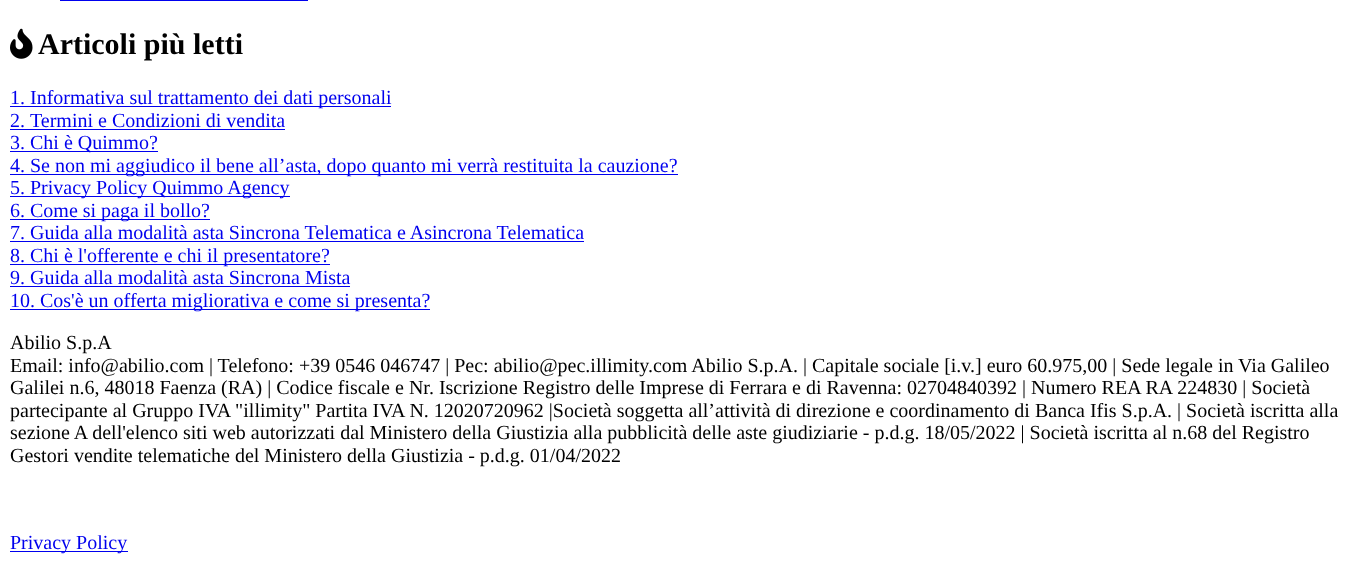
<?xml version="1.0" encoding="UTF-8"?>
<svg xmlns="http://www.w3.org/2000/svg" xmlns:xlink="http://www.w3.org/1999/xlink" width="1353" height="579">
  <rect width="100%" height="100%" fill="#ffffff" />
  <rect x="60" width="248" height="1" fill="#0000ee" />
  <image x="10" y="28" width="23" height="31" xlink:href="image1.png" />
  <rect x="10" y="106" width="381" height="1" fill="#0000ee" />
  <rect x="10" y="129" width="275" height="1" fill="#0000ee" />
  <rect x="10" y="151" width="148" height="1" fill="#0000ee" />
  <rect x="10" y="174" width="668" height="1" fill="#0000ee" />
  <rect x="10" y="196" width="280" height="1" fill="#0000ee" />
  <rect x="10" y="219" width="200" height="1" fill="#0000ee" />
  <rect x="10" y="241" width="574" height="1" fill="#0000ee" />
  <rect x="10" y="264" width="320" height="1" fill="#0000ee" />
  <rect x="10" y="286" width="340" height="1" fill="#0000ee" />
  <rect x="10" y="309" width="420" height="1" fill="#0000ee" />
  <rect x="10" y="551" width="118" height="1" fill="#0000ee" />
  <text x="38" y="54" style="font-family: Liberation Serif; font-size: 30px; font-weight: bold; fill: #000000">Articoli più letti</text>
  <text x="10" y="104" style="font-family: Liberation Serif; font-size: 20px; fill: #0000ee">1. Informativa sul trattamento dei dati personali</text>
  <text x="10" y="127" style="font-family: Liberation Serif; font-size: 20px; fill: #0000ee">2.</text>
  <text x="30" y="127" style="font-family: Liberation Serif; font-size: 20px; fill: #0000ee">Termini e Condizioni di vendita</text>
  <text x="10" y="149" style="font-family: Liberation Serif; font-size: 20px; fill: #0000ee">3. Chi è Quimmo?</text>
  <text x="10" y="172" style="font-family: Liberation Serif; font-size: 20px; fill: #0000ee">4. Se non mi aggiudico il bene all’asta, dopo quanto mi verrà restituita la cauzione?</text>
  <text x="10" y="194" style="font-family: Liberation Serif; font-size: 20px; fill: #0000ee">5. Privacy Policy Quimmo Agency</text>
  <text x="10" y="217" style="font-family: Liberation Serif; font-size: 20px; fill: #0000ee">6. Come si paga il bollo?</text>
  <text x="10" y="239" style="font-family: Liberation Serif; font-size: 20px; fill: #0000ee">7. Guida alla modalità asta Sincrona Telematica e Asincrona Telematica</text>
  <text x="10" y="262" style="font-family: Liberation Serif; font-size: 20px; fill: #0000ee">8. Chi è l'offerente e chi il presentatore?</text>
  <text x="10" y="284" style="font-family: Liberation Serif; font-size: 20px; fill: #0000ee">9. Guida alla modalità asta Sincrona Mista</text>
  <text x="10" y="307" style="font-family: Liberation Serif; font-size: 20px; fill: #0000ee">10. Cos'è un offerta migliorativa e come si presenta?</text>
  <text x="10" y="349" style="font-family: Liberation Serif; font-size: 20px; fill: #000000">Abilio S.p.A</text>
  <text x="10" y="372" style="font-family: Liberation Serif; font-size: 20px; fill: #000000">Email: info@abilio.com | Telefono: +39 0546 046747 | Pec: abilio@pec.illimity.com Abilio S.p.A. | Capitale sociale [i.v.] euro 60.975,00 | Sede legale in Via Galileo</text>
  <text x="10" y="394" style="font-family: Liberation Serif; font-size: 20px; fill: #000000">Galilei n.6, 48018 Faenza (RA) | Codice fiscale e Nr. Iscrizione Registro delle Imprese di Ferrara e di Ravenna: 02704840392 | Numero REA RA 224830 | Società</text>
  <text x="10" y="417" style="font-family: Liberation Serif; font-size: 20px; fill: #000000">partecipante al Gruppo IVA "illimity" Partita IVA N. 12020720962 |Società soggetta all’attività di direzione e coordinamento di Banca Ifis S.p.A. | Società iscritta alla</text>
  <text x="10" y="439" style="font-family: Liberation Serif; font-size: 20px; fill: #000000">sezione A dell'elenco siti web autorizzati dal Ministero della Giustizia alla pubblicità delle aste giudiziarie - p.d.g. 18/05/2022 | Società iscritta al n.68 del Registro</text>
  <text x="10" y="462" style="font-family: Liberation Serif; font-size: 20px; fill: #000000">Gestori vendite telematiche del Ministero della Giustizia - p.d.g. 01/04/2022</text>
  <text x="10" y="549" style="font-family: Liberation Serif; font-size: 20px; fill: #0000ee">Privacy Policy</text>
</svg>
